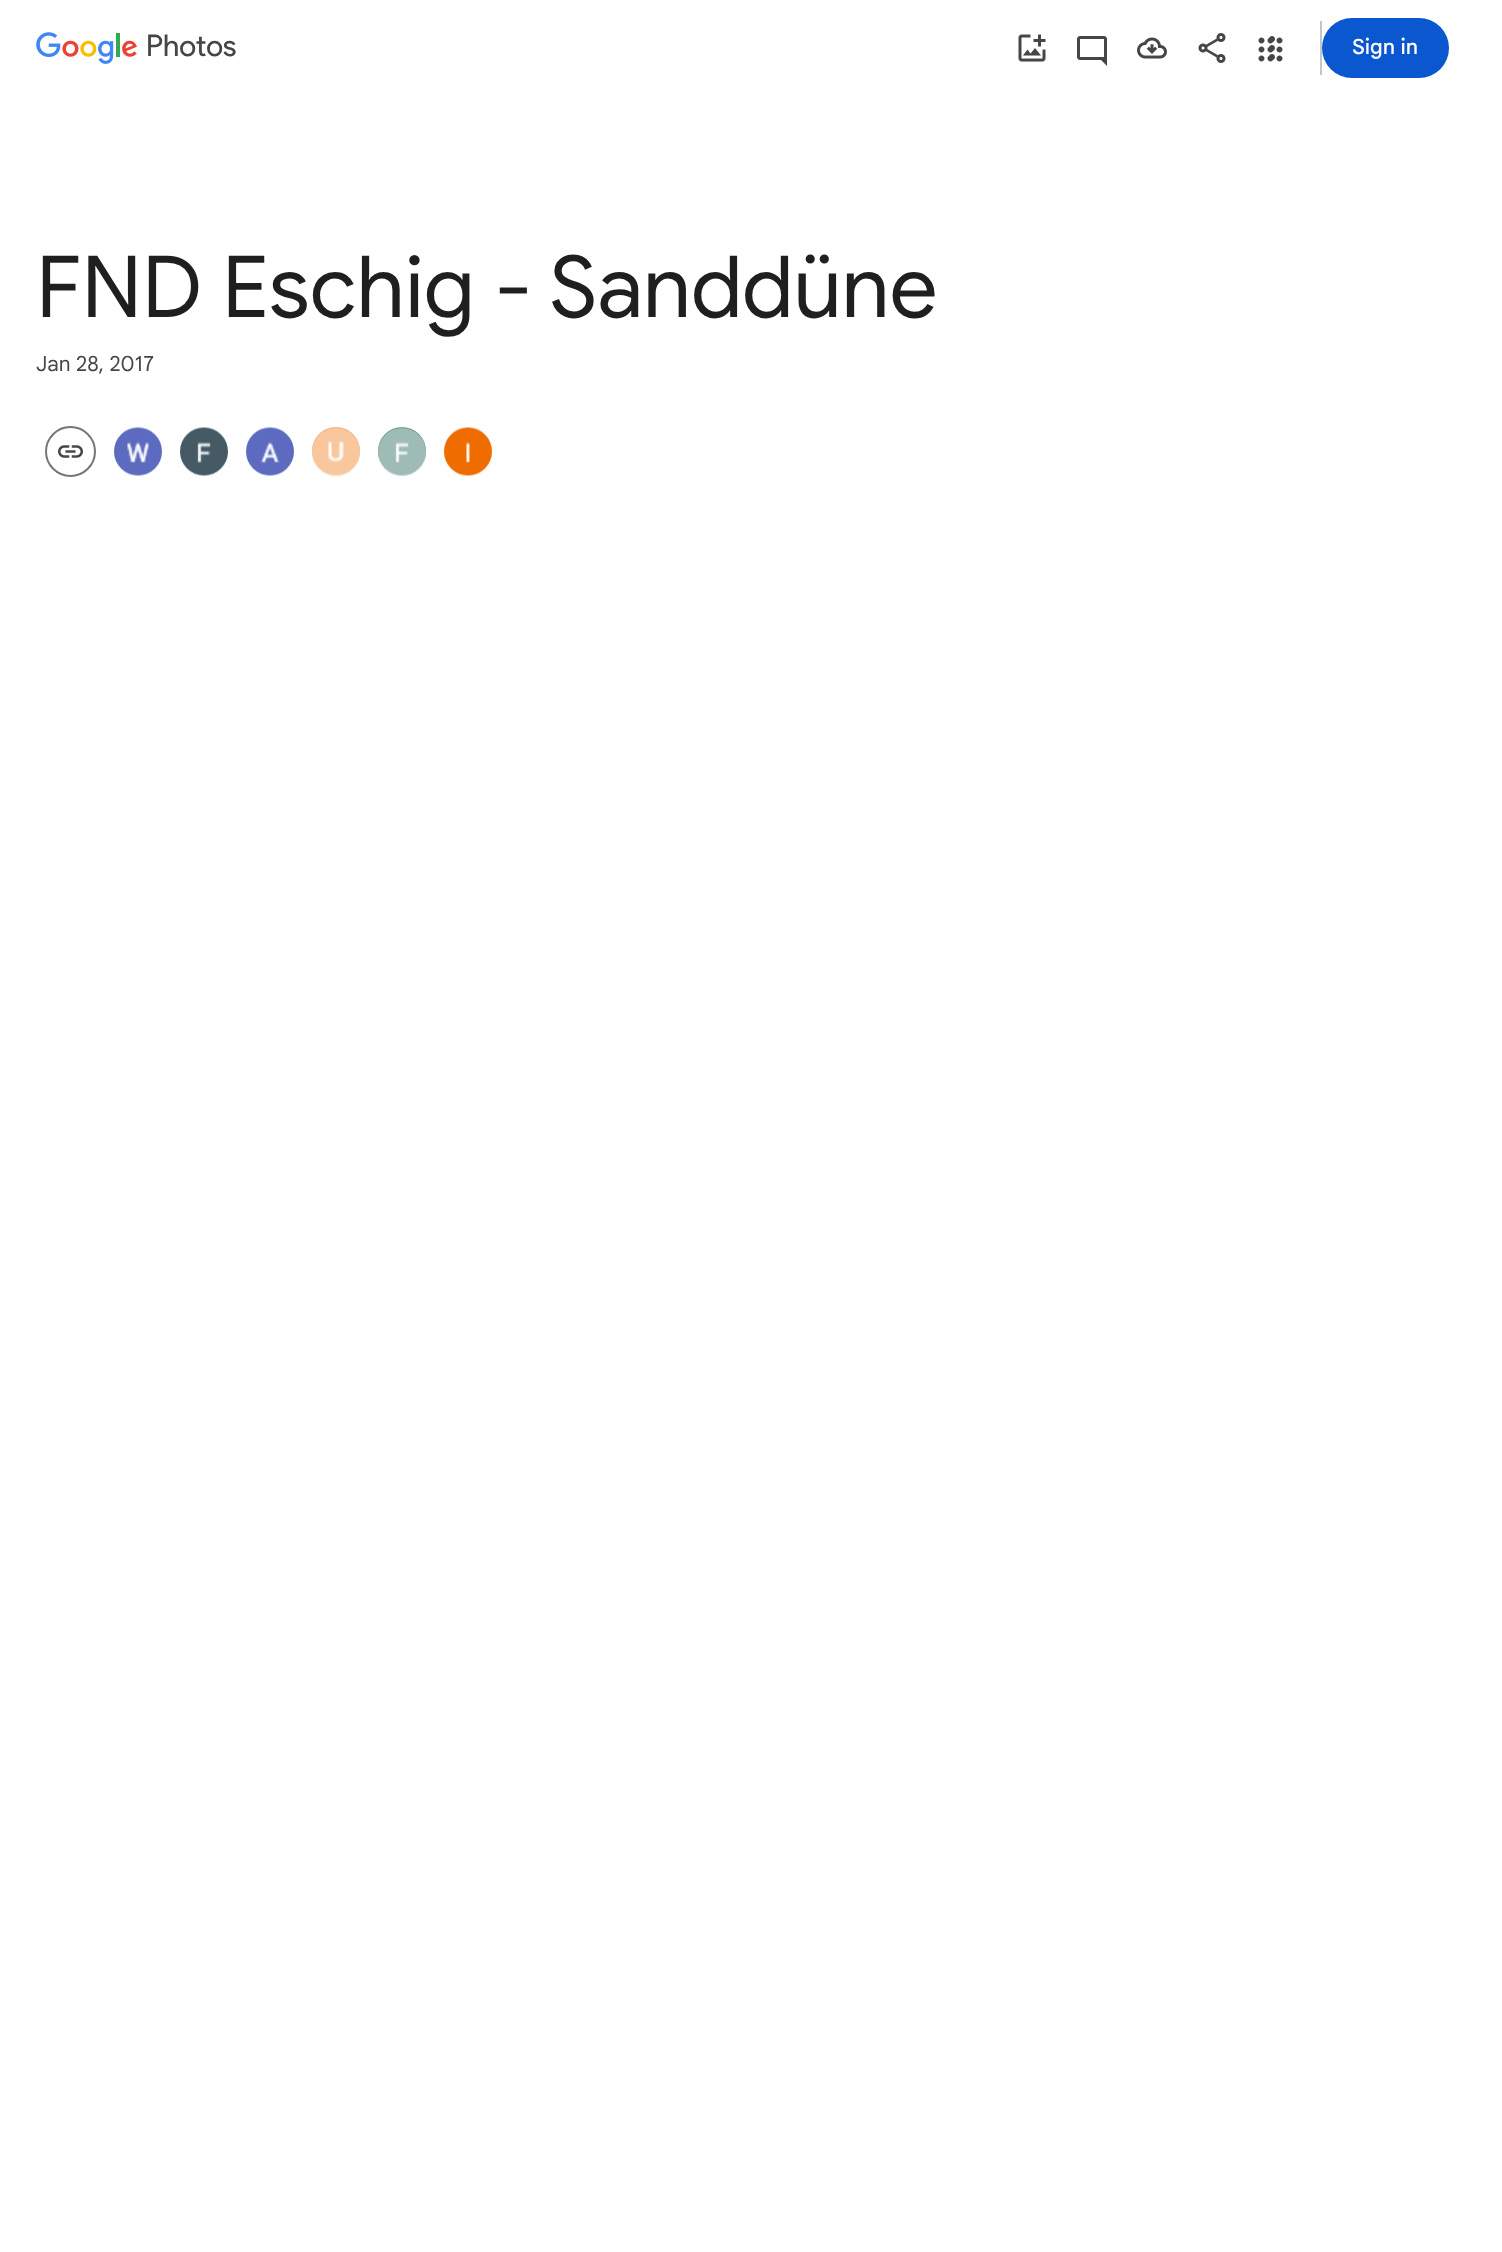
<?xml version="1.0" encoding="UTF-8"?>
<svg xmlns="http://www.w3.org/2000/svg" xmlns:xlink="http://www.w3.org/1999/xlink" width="1502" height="2252">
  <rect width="100%" height="100%" fill="#ffffff" />
  <image x="36" y="32" width="101" height="32" xlink:href="image1.png" />
  <image x="1018" y="34" width="28" height="28" xlink:href="image2.png" />
  <image x="1077" y="36" width="30" height="30" xlink:href="image3.png" />
  <image x="1137" y="37" width="30" height="22" xlink:href="image4.png" />
  <image x="1198" y="33" width="28" height="30" xlink:href="image5.png" />
  <image x="1269" y="36" width="6" height="24" xlink:href="image6.png" />
  <rect x="1320" y="21" width="2" height="54" fill="#c4c7c5" />
  <circle cx="70.5" cy="451.5" r="24.5" fill="none" stroke="#747775" stroke-width="2" />
  <image x="58" y="445" width="25" height="13" xlink:href="image7.png" />
  <image x="114" y="427" width="48" height="49" xlink:href="image8.png" />
  <image x="180" y="427" width="48" height="49" xlink:href="image9.png" />
  <image x="246" y="427" width="48" height="49" xlink:href="image10.png" />
  <image x="312" y="427" width="48" height="49" xlink:href="image11.png" />
  <circle cx="336" cy="452" r="24" fill="#ffffff" fill-opacity="0.62" />
  <image x="378" y="427" width="48" height="49" xlink:href="image12.png" />
  <circle cx="402" cy="452" r="24" fill="#ffffff" fill-opacity="0.62" />
  <image x="444" y="427" width="48" height="49" xlink:href="image13.png" />
  <image x="1258" y="37" width="25" height="25" xlink:href="image14.png" />
  <rect x="1322" y="18" width="127" height="60" rx="30" fill="#0b57d0" />
  <text x="146" y="56" style="font-family: Product Sans; font-size: 30px; fill: #444746">Photos</text>
  <text x="36" y="317" style="font-family: Google Sans; font-size: 85.5px; fill: #1f1f1f">FND Eschig - Sanddüne</text>
  <text x="36" y="371" style="font-family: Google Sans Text; font-size: 21px; fill: #444746">Jan 28, 2017</text>
  <text x="1352" y="54" style="font-family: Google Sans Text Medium; font-size: 21px; font-weight: 500; fill: #ffffff">Sign in</text>
</svg>
